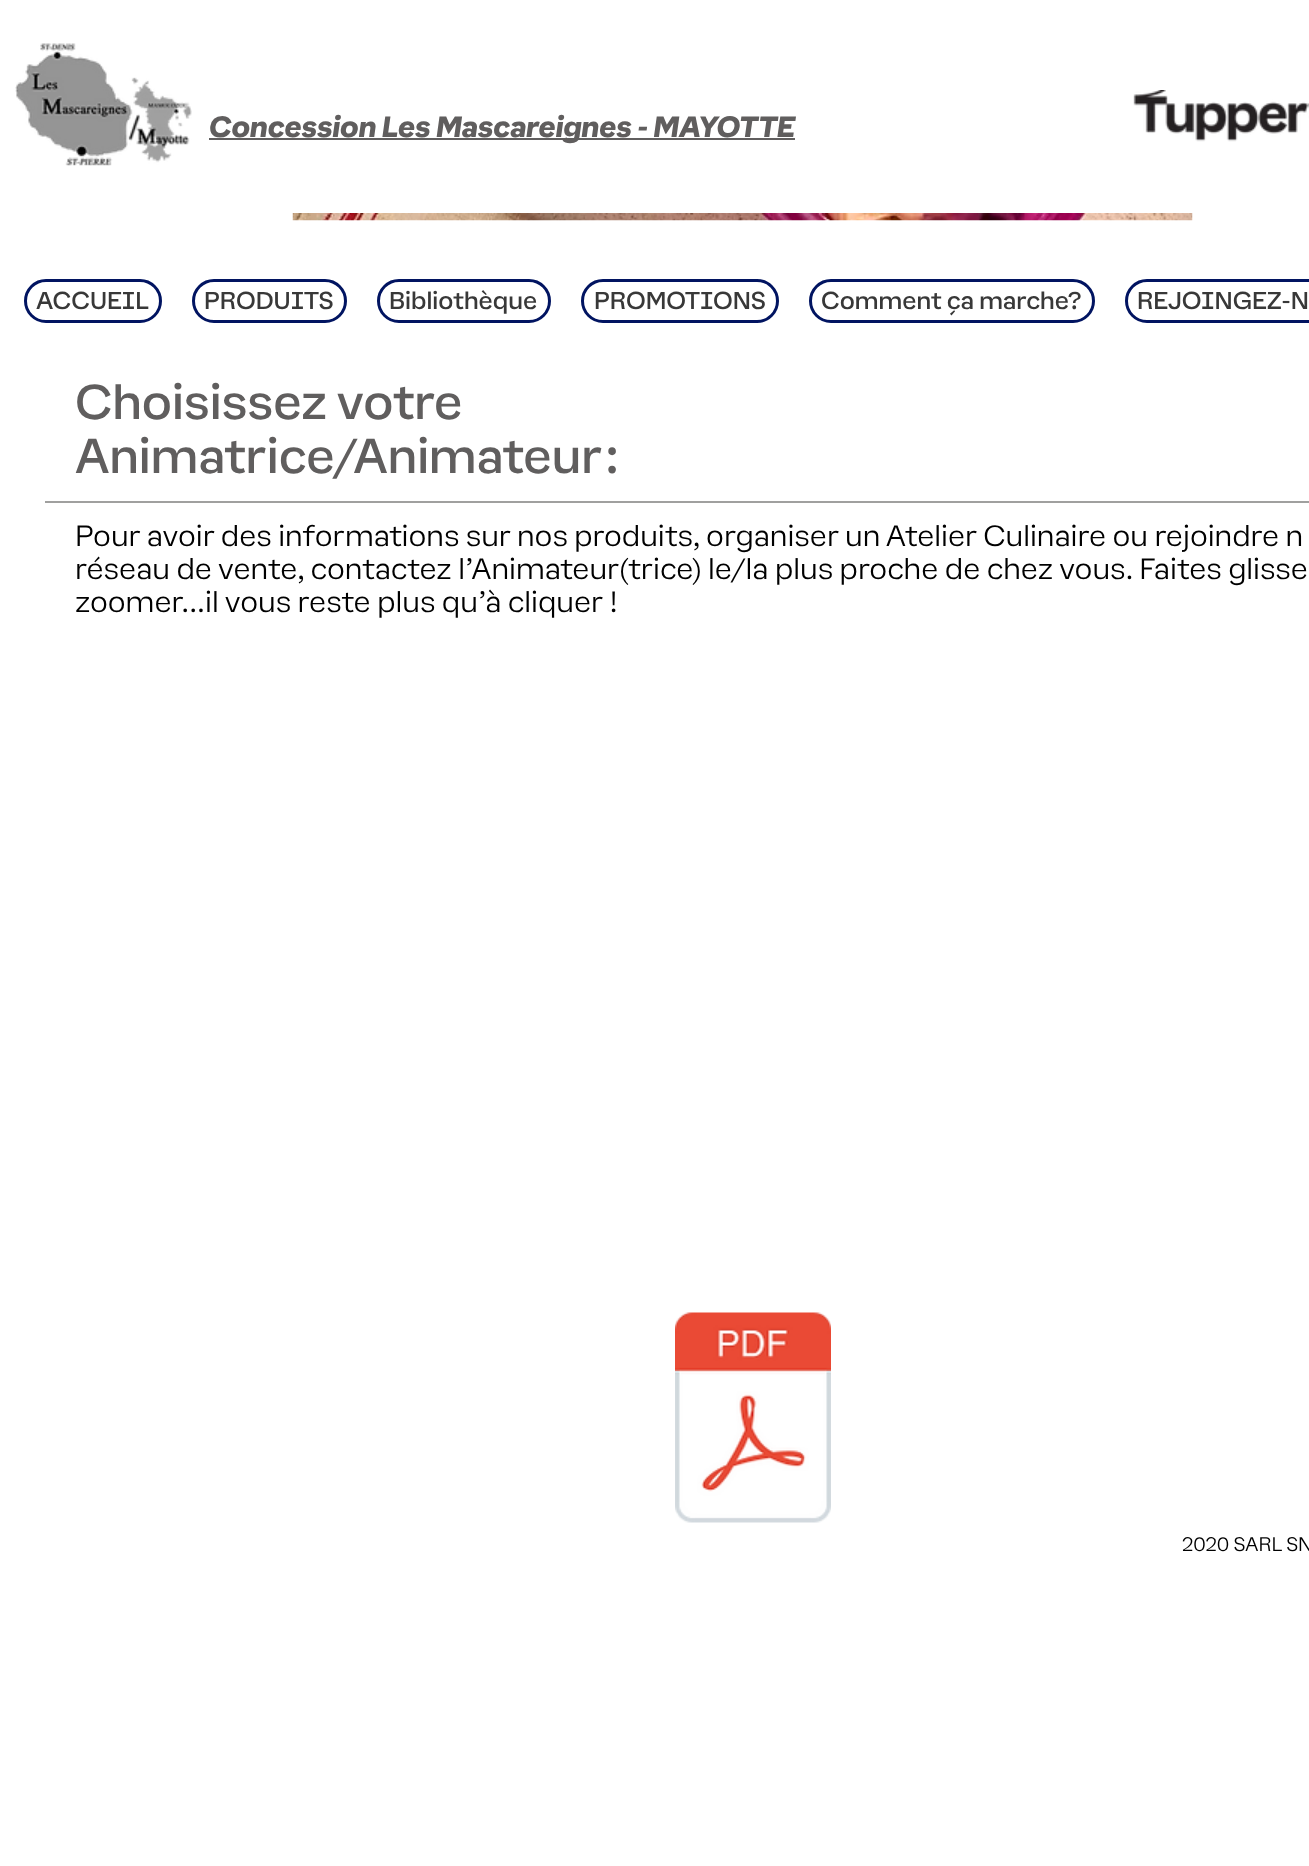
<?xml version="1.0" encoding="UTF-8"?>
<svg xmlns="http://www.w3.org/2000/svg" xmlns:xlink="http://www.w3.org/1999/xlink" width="1309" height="1866">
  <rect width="100%" height="100%" fill="#ffffff" />
  <image x="15" y="43" width="177" height="123" xlink:href="image1.png" />
  <rect x="209" y="138" width="586" height="2" fill="#605e5e" />
  <image x="1133" y="90" width="176" height="52" xlink:href="image2.png" />
  <rect x="25.5" y="280.5" width="135" height="41" rx="20.5" fill="none" stroke="#011461" stroke-width="3" />
  <rect x="193.5" y="280.5" width="152" height="41" rx="20.5" fill="none" stroke="#011461" stroke-width="3" />
  <rect x="378.5" y="280.5" width="171" height="41" rx="20.5" fill="none" stroke="#011461" stroke-width="3" />
  <rect x="582.5" y="280.5" width="195" height="41" rx="20.5" fill="none" stroke="#011461" stroke-width="3" />
  <rect x="810.5" y="280.5" width="283" height="41" rx="20.5" fill="none" stroke="#011461" stroke-width="3" />
  <rect x="1126.5" y="280.5" width="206" height="41" rx="20.5" fill="none" stroke="#011461" stroke-width="3" />
  <rect x="45" y="501" width="1264" height="2" fill="#a0a09f" />
  <image x="292" y="213" width="901" height="8" xlink:href="image3.png" />
  <image x="675" y="1312" width="156" height="211" xlink:href="image4.png" />
  <text x="209" y="137" style="font-family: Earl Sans; font-size: 27px; font-weight: 900; font-style: italic; fill: #605e5e">Concession Les Mascareignes - MAYOTTE</text>
  <text x="36" y="309" style="font-family: Earl Sans; font-size: 22.5px; fill: #383838">ACCUEIL</text>
  <text x="204" y="309" style="font-family: Earl Sans; font-size: 22.5px; fill: #383838">PRODUITS</text>
  <text x="389" y="309" style="font-family: Earl Sans; font-size: 22.5px; fill: #383838">Bibliothèque</text>
  <text x="594" y="309" style="font-family: Earl Sans; font-size: 22.5px; fill: #383838">PROMOTIONS</text>
  <text x="821" y="309" style="font-family: Earl Sans; font-size: 22.5px; fill: #383838">Comment ça marche?</text>
  <text x="1137" y="309" style="font-family: Earl Sans; font-size: 22.5px; fill: #383838">REJOINGEZ-N</text>
  <text x="75" y="419" style="font-family: Earl Sans; font-size: 45px; fill: #605e5e">Choisissez votre</text>
  <text x="75" y="473" style="font-family: Earl Sans; font-size: 45px; fill: #605e5e">Animatrice/Animateur:</text>
  <text x="75" y="546" style="font-family: Earl Sans; font-size: 27px; font-weight: 300; fill: #000000">Pour avoir des informations sur nos produits, organiser un Atelier Culinaire ou rejoindre n</text>
  <text x="75" y="579" style="font-family: Earl Sans; font-size: 27px; font-weight: 300; fill: #000000">réseau de vente, contactez l’Animateur(trice) le/la plus proche de chez vous. Faites glisse</text>
  <text x="75" y="612" style="font-family: Earl Sans; font-size: 27px; font-weight: 300; fill: #000000">zoomer...il vous reste plus qu'à cliquer !</text>
  <text x="1182" y="1551" style="font-family: Earl Sans; font-size: 18px; font-weight: 300; fill: #000000">2020 SARL SN</text>
</svg>
